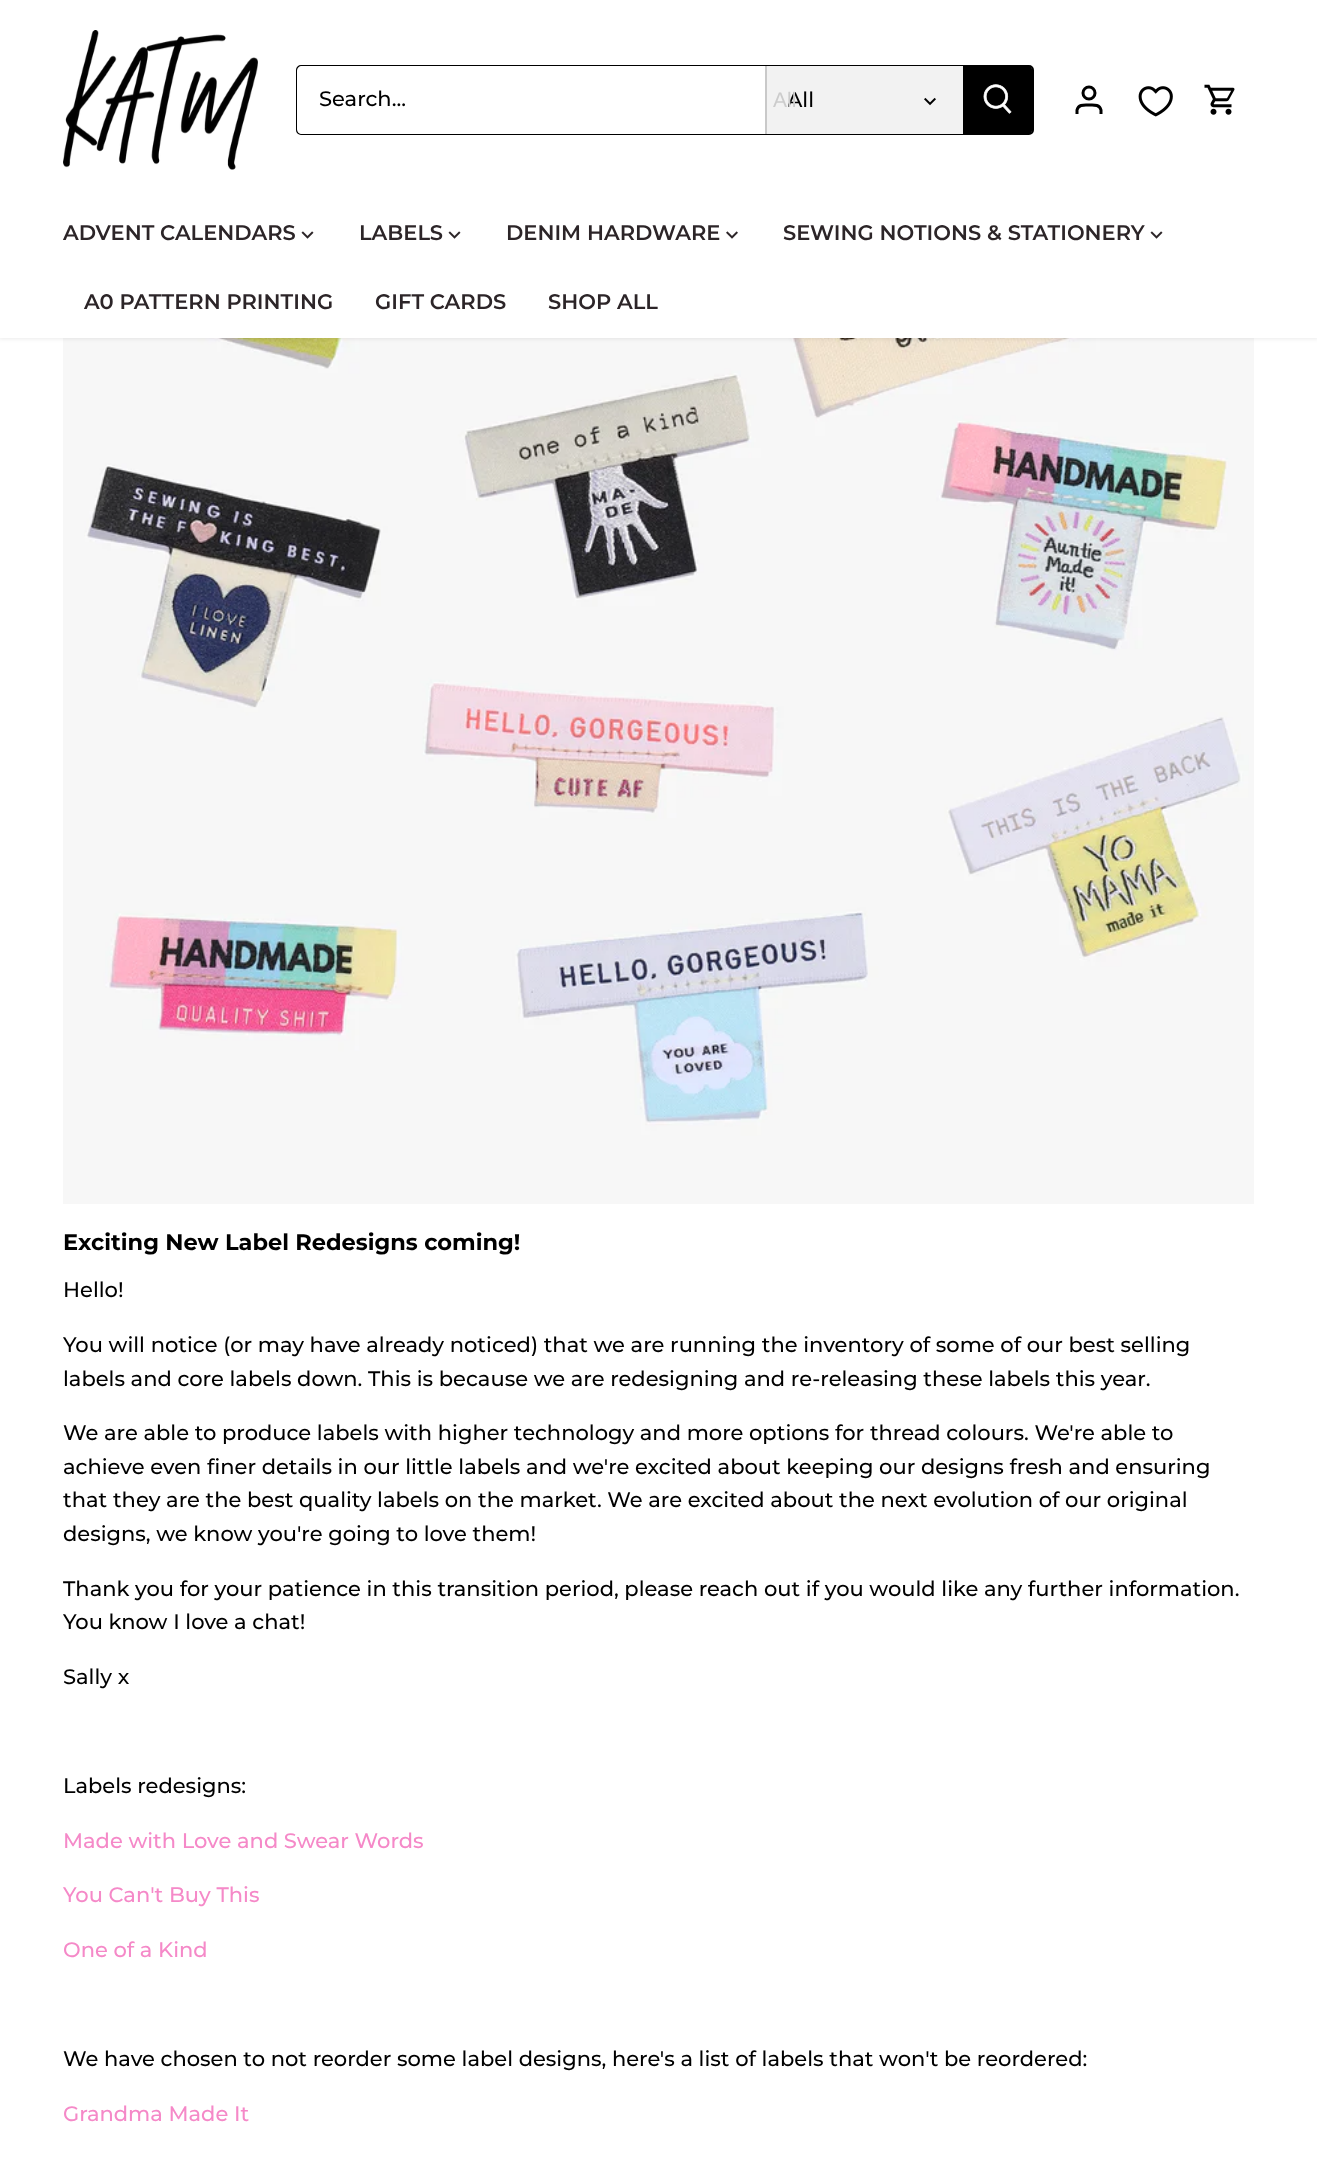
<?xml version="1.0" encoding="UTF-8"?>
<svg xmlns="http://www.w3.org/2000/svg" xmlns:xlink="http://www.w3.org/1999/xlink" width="1317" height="2170">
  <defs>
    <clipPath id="clip1"><rect x="788" y="86" width="156" height="27" /></clipPath>
  </defs>
  <rect width="100%" height="100%" fill="#ffffff" />
  <image x="63" y="338" width="1191" height="866" xlink:href="image8.png" />
  <rect x="-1" y="-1" width="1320" height="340" fill="#000000" fill-opacity="0.08" filter="blur(2px)" />
  <rect width="1317" height="338" fill="#ffffff" />
  <image x="63" y="30" width="195" height="140" xlink:href="image1.png" />
  <rect x="297" y="66" width="736" height="68" rx="4" fill="none" stroke="#000000" stroke-width="2" />
  <path d="M 302 66 h 463 v 68 h -463 c -3 0 -5 -2 -5 -5 v -58 c 0 -3 2 -5 5 -5 z" fill="#ffffff" />
  <rect x="767" y="66" width="196" height="68" fill="#f2f2f2" />
  <rect x="765" y="66" width="2" height="68" fill="#c9c9c9" />
  <image x="924" y="97" width="12" height="9" xlink:href="image2.png" />
  <path d="M 963 66 h 66 c 1.5 0 3 1.5 3 3 v 62 c 0 1.5 -1.5 3 -3 3 h -66 z" fill="#000000" />
  <image x="983" y="84" width="29" height="30" xlink:href="image3.png" />
  <circle cx="1089" cy="93" r="6" fill="none" stroke="#000000" stroke-width="3" />
  <path d="M 1101 114 v -4 c -1.5 -6 -7.5 -5 -12 -5 c -4.5 0 -10.5 -1 -12 5 v 4" fill="none" stroke="#000000" stroke-width="3" />
  <image x="1138" y="86" width="35" height="31" xlink:href="image4.png" />
  <image x="1204" y="84" width="31" height="31" xlink:href="image5.png" />
  <image x="301" y="231" width="13" height="8" xlink:href="image6.png" />
  <image x="448" y="231" width="13" height="8" xlink:href="image6.png" />
  <image x="726" y="231" width="12" height="8" xlink:href="image7.png" />
  <image x="1150" y="231" width="13" height="8" xlink:href="image6.png" />
  <text x="319" y="106" style="font-family: Montserrat; font-size: 21px; font-weight: 500; fill: #000000">Search...</text>
  <g clip-path="url(#clip1)">
    <text x="787" y="107" style="font-family: Montserrat; font-size: 21px; font-weight: 500; fill: #000000">All</text>
  </g>
  <text x="773" y="107" style="font-family: Liberation Sans; font-size: 21px; fill: #cccccc">All</text>
  <text x="63" y="240" style="font-family: Montserrat; font-size: 21px; font-weight: 600; fill: #2c2528">ADVENT CALENDARS</text>
  <text x="359" y="240" style="font-family: Montserrat; font-size: 21px; font-weight: 600; fill: #2c2528">LABELS</text>
  <text x="506" y="240" style="font-family: Montserrat; font-size: 21px; font-weight: 600; fill: #2c2528">DENIM HARDWARE</text>
  <text x="783" y="240" style="font-family: Montserrat; font-size: 21px; font-weight: 600; fill: #2c2528">SEWING NOTIONS &amp; STATIONERY</text>
  <text x="84" y="309" style="font-family: Montserrat; font-size: 21px; font-weight: 600; fill: #2c2528">A0 PATTERN PRINTING</text>
  <text x="375" y="309" style="font-family: Montserrat; font-size: 21px; font-weight: 600; fill: #2c2528">GIFT CARDS</text>
  <text x="548" y="309" style="font-family: Montserrat; font-size: 21px; font-weight: 600; fill: #2c2528">SHOP ALL</text>
  <text x="63" y="1250" style="font-family: Montserrat; font-size: 22.5px; font-weight: bold; fill: #000000">Exciting New Label Redesigns coming!</text>
  <text x="63" y="1297" style="font-family: Montserrat; font-size: 21px; font-weight: 500; fill: #000000">Hello!</text>
  <text x="63" y="1352" style="font-family: Montserrat; font-size: 21px; font-weight: 500; fill: #000000">You will notice (or may have already noticed) that we are running the inventory of some of our best selling</text>
  <text x="63" y="1386" style="font-family: Montserrat; font-size: 21px; font-weight: 500; fill: #000000">labels and core labels down. This is because we are redesigning and re-releasing these labels this year.</text>
  <text x="63" y="1440" style="font-family: Montserrat; font-size: 21px; font-weight: 500; fill: #000000">We are able to produce labels with higher technology and more options for thread colours. We're able to</text>
  <text x="63" y="1474" style="font-family: Montserrat; font-size: 21px; font-weight: 500; fill: #000000">achieve even finer details in our little labels and we're excited about keeping our designs fresh and ensuring</text>
  <text x="63" y="1507" style="font-family: Montserrat; font-size: 21px; font-weight: 500; fill: #000000">that they are the best quality labels on the market. We are excited about the next evolution of our original</text>
  <text x="63" y="1541" style="font-family: Montserrat; font-size: 21px; font-weight: 500; fill: #000000">designs, we know you're going to love them!</text>
  <text x="63" y="1596" style="font-family: Montserrat; font-size: 21px; font-weight: 500; fill: #000000">Thank you for your patience in this transition period, please reach out if you would like any further information.</text>
  <text x="63" y="1629" style="font-family: Montserrat; font-size: 21px; font-weight: 500; fill: #000000">You know I love a chat!</text>
  <text x="63" y="1684" style="font-family: Montserrat; font-size: 21px; font-weight: 500; fill: #000000">Sally x</text>
  <text x="63" y="1793" style="font-family: Montserrat; font-size: 21px; font-weight: 500; fill: #000000">Labels redesigns:</text>
  <text x="63" y="1848" style="font-family: Montserrat; font-size: 21px; font-weight: 500; fill: #f589c8">Made with Love and Swear Words</text>
  <text x="63" y="1902" style="font-family: Montserrat; font-size: 21px; font-weight: 500; fill: #f589c8">You Can't Buy This</text>
  <text x="63" y="1957" style="font-family: Montserrat; font-size: 21px; font-weight: 500; fill: #f589c8">One of a Kind</text>
  <text x="63" y="2066" style="font-family: Montserrat; font-size: 21px; font-weight: 500; fill: #000000">We have chosen to not reorder some label designs, here's a list of labels that won't be reordered:</text>
  <text x="63" y="2121" style="font-family: Montserrat; font-size: 21px; font-weight: 500; fill: #f589c8">Grandma Made It</text>
</svg>
